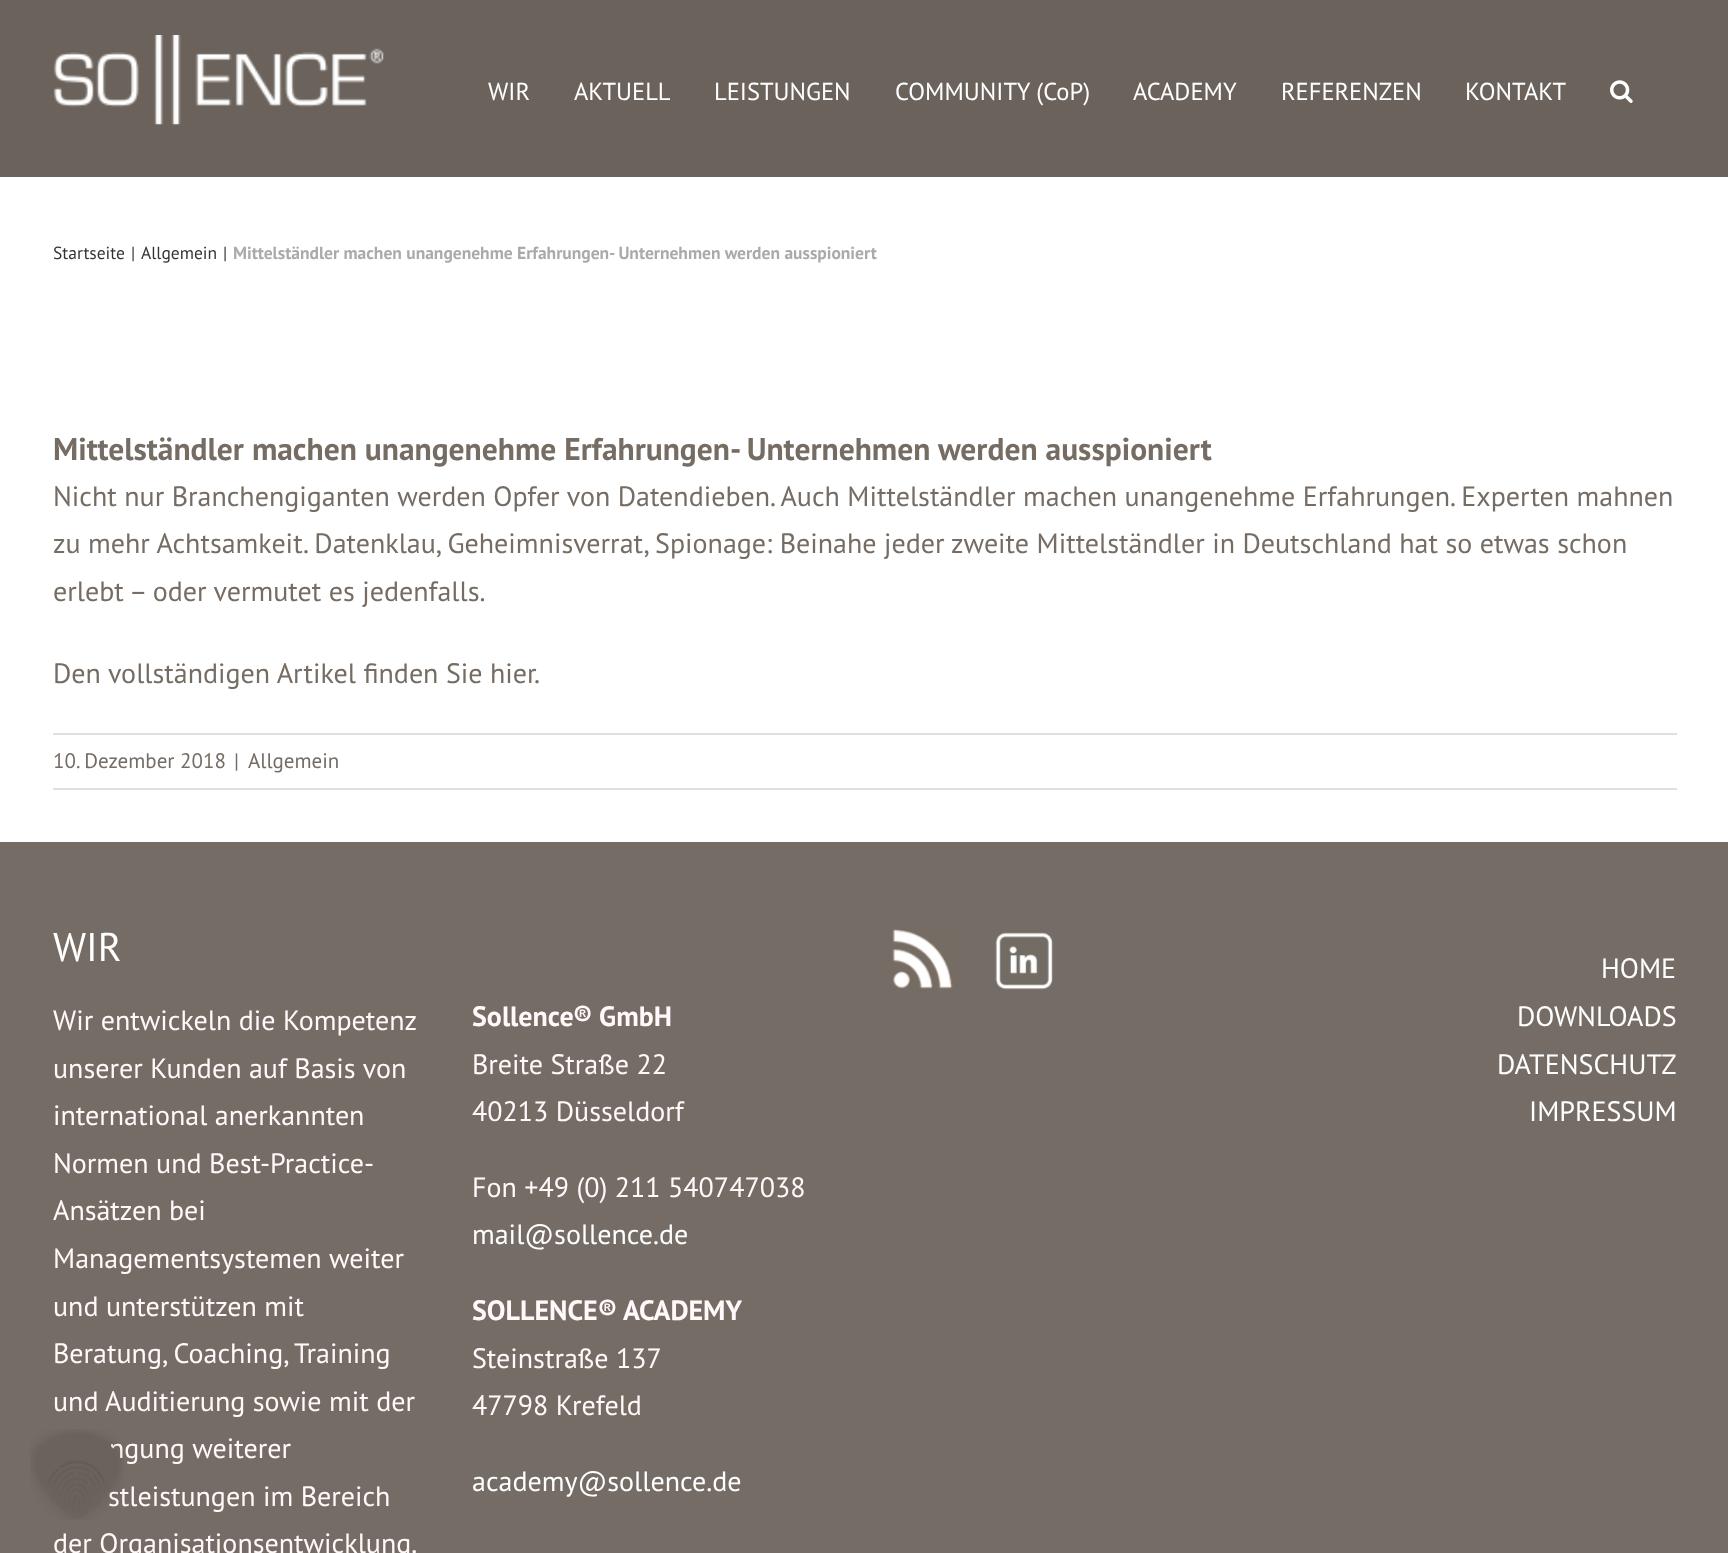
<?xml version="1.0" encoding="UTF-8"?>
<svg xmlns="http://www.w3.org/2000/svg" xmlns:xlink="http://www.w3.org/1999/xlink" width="1728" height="1553">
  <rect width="100%" height="100%" fill="#ffffff" />
  <rect width="1728" height="177" fill="#6b625b" />
  <image x="53" y="35" width="331" height="90" xlink:href="image1.png" />
  <image x="1610" y="80" width="23" height="23" xlink:href="image2.png" />
  <rect x="53" y="733" width="1624" height="2" fill="#e0dede" />
  <rect x="53" y="788" width="1624" height="2" fill="#e0dede" />
  <rect y="842" width="1728" height="711" fill="#756c65" />
  <image x="892" y="929" width="61" height="60" xlink:href="image3.png" />
  <image x="995" y="932" width="58" height="58" xlink:href="image4.png" />
  <text x="488" y="100" style="font-family: PT Sans; font-size: 24.5px; fill: #ffffff">WIR</text>
  <text x="574" y="100" style="font-family: PT Sans; font-size: 24.5px; fill: #ffffff">AKTUELL</text>
  <text x="714" y="100" style="font-family: PT Sans; font-size: 24.5px; fill: #ffffff">LEISTUNGEN</text>
  <text x="895" y="100" style="font-family: PT Sans; font-size: 24.5px; fill: #ffffff">COMMUNITY (CoP)</text>
  <text x="1133" y="100" style="font-family: PT Sans; font-size: 24.5px; fill: #ffffff">ACADEMY</text>
  <text x="1281" y="100" style="font-family: PT Sans; font-size: 24.5px; fill: #ffffff">REFERENZEN</text>
  <text x="1465" y="100" style="font-family: PT Sans; font-size: 24.5px; fill: #ffffff">KONTAKT</text>
  <text x="53" y="259" style="font-family: PT Sans; font-size: 17.5px; fill: #333333">Startseite</text>
  <text x="131" y="259" style="font-family: PT Sans; font-size: 17.5px; fill: #333333">|</text>
  <text x="141" y="259" style="font-family: PT Sans; font-size: 17.5px; fill: #333333">Allgemein</text>
  <text x="223" y="259" style="font-family: PT Sans; font-size: 17.5px; fill: #333333">|</text>
  <text x="233" y="259" style="font-family: PT Sans; font-size: 17.5px; font-weight: bold; fill: #aaaaaa">Mittelständler machen unangenehme Erfahrungen- Unternehmen werden ausspioniert</text>
  <text x="53" y="460" style="font-family: PT Sans; font-size: 31.5px; font-weight: bold; fill: #756c64">Mittelständler machen unangenehme Erfahrungen- Unternehmen werden ausspioniert</text>
  <text x="53" y="506" style="font-family: PT Sans; font-size: 28px; fill: #756c64">Nicht nur Branchengiganten werden Opfer von Datendieben. Auch Mittelständler machen unangenehme Erfahrungen. Experten mahnen</text>
  <text x="53" y="553" style="font-family: PT Sans; font-size: 28px; fill: #756c64">zu mehr Achtsamkeit. Datenklau, Geheimnisverrat, Spionage: Beinahe jeder zweite Mittelständler in Deutschland hat so etwas schon</text>
  <text x="53" y="601" style="font-family: PT Sans; font-size: 28px; fill: #756c64">erlebt – oder vermutet es jedenfalls.</text>
  <text x="53" y="683" style="font-family: PT Sans; font-size: 28px; fill: #756c64">Den vollständigen Artikel finden Sie hier</text>
  <text x="534" y="683" style="font-family: PT Sans; font-size: 28px; fill: #756c64">.</text>
  <text x="53" y="768" style="font-family: PT Sans; font-size: 21px; fill: #756c64">10. Dezember 2018</text>
  <text x="234" y="768" style="font-family: PT Sans; font-size: 21px; fill: #756c64">|</text>
  <text x="248" y="768" style="font-family: PT Sans; font-size: 21px; fill: #756c64">Allgemein</text>
  <text x="53" y="961" style="font-family: PT Sans; font-size: 40px; fill: #ffffff">WIR</text>
  <text x="53" y="1030" style="font-family: PT Sans; font-size: 28px; fill: #fff9f9">Wir entwickeln die Kompetenz</text>
  <text x="53" y="1078" style="font-family: PT Sans; font-size: 28px; fill: #fff9f9">unserer Kunden auf Basis von</text>
  <text x="53" y="1125" style="font-family: PT Sans; font-size: 28px; fill: #fff9f9">international anerkannten</text>
  <text x="53" y="1173" style="font-family: PT Sans; font-size: 28px; fill: #fff9f9">Normen und Best-Practice-</text>
  <text x="53" y="1220" style="font-family: PT Sans; font-size: 28px; fill: #fff9f9">Ansätzen bei</text>
  <text x="53" y="1268" style="font-family: PT Sans; font-size: 28px; fill: #fff9f9">Managementsystemen weiter</text>
  <text x="53" y="1316" style="font-family: PT Sans; font-size: 28px; fill: #fff9f9">und unterstützen mit</text>
  <text x="53" y="1363" style="font-family: PT Sans; font-size: 28px; fill: #fff9f9">Beratung, Coaching, Training</text>
  <text x="53" y="1411" style="font-family: PT Sans; font-size: 28px; fill: #fff9f9">und Auditierung sowie mit der</text>
  <text x="109" y="1458" style="font-family: PT Sans; font-size: 28px; fill: #fff9f9">ngung weiterer</text>
  <text x="108" y="1506" style="font-family: PT Sans; font-size: 28px; fill: #fff9f9">stleistungen im Bereich</text>
  <text x="53" y="1553" style="font-family: PT Sans; font-size: 28px; fill: #fff9f9">der Organisationsentwicklung.</text>
  <text x="472" y="1026" style="font-family: PT Sans; font-size: 28px; font-weight: bold; fill: #fff9f9">Sollence® GmbH</text>
  <text x="472" y="1074" style="font-family: PT Sans; font-size: 28px; fill: #fff9f9">Breite Straße 22</text>
  <text x="472" y="1121" style="font-family: PT Sans; font-size: 28px; fill: #fff9f9">40213 Düsseldorf</text>
  <text x="472" y="1197" style="font-family: PT Sans; font-size: 28px; fill: #fff9f9">Fon +49 (0) 211 540747038</text>
  <text x="472" y="1244" style="font-family: PT Sans; font-size: 28px; fill: #ffffff">mail@sollence.de</text>
  <text x="472" y="1320" style="font-family: PT Sans; font-size: 28px; font-weight: bold; fill: #fff9f9">SOLLENCE® ACADEMY</text>
  <text x="472" y="1368" style="font-family: PT Sans; font-size: 28px; fill: #fff9f9">Steinstraße 137</text>
  <text x="472" y="1415" style="font-family: PT Sans; font-size: 28px; fill: #fff9f9">47798 Krefeld</text>
  <text x="472" y="1491" style="font-family: PT Sans; font-size: 28px; fill: #ffffff">academy@sollence.de</text>
  <text x="1601" y="978" style="font-family: PT Sans; font-size: 28px; fill: #ffffff">HOME</text>
  <text x="1517" y="1026" style="font-family: PT Sans; font-size: 28px; fill: #ffffff">DOWNLOADS</text>
  <text x="1497" y="1074" style="font-family: PT Sans; font-size: 28px; fill: #ffffff">DATENSCHUTZ</text>
  <text x="1529" y="1121" style="font-family: PT Sans; font-size: 28px; fill: #ffffff">IMPRESSUM</text>
  <image x="30" y="1429" width="94" height="91" xlink:href="image5.png" />
</svg>
